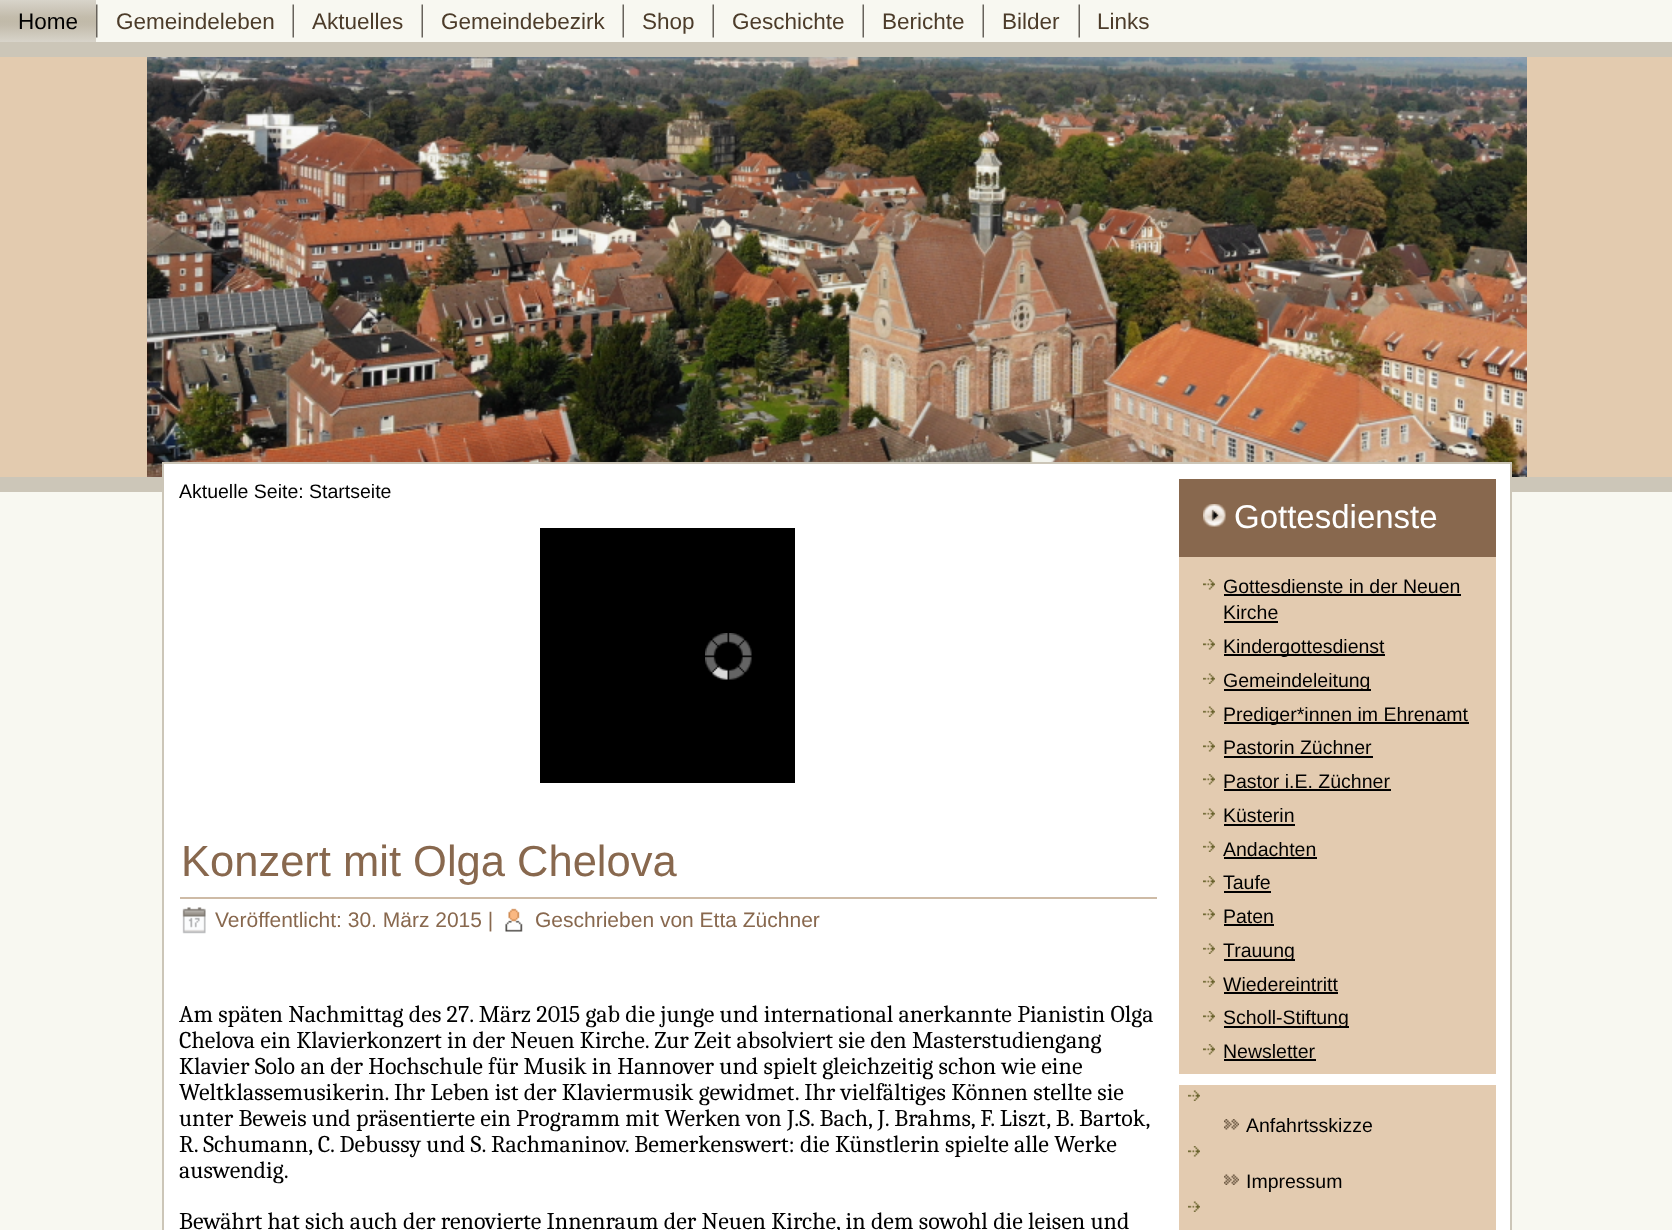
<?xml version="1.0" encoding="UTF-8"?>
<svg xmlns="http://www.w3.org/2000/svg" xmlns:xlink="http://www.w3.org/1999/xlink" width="1672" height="1230">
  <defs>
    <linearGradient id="g1" gradientUnits="userSpaceOnUse" x1="48" y1="0" x2="48" y2="42"><stop offset="0" stop-color="#d8d4ca" /><stop offset="0.4" stop-color="#c3bcac" /><stop offset="0.5" stop-color="#c1baa9" /><stop offset="0.6" stop-color="#c3bcac" /><stop offset="1" stop-color="#d8d4ca" /></linearGradient>
  </defs>
  <rect width="100%" height="100%" fill="#f8f8f1" />
  <rect width="96" height="42" fill="url(#g1)" />
  <image x="96" y="4" width="2" height="34" xlink:href="image1.png" />
  <image x="292" y="4" width="2" height="34" xlink:href="image2.png" />
  <image x="421" y="4" width="2" height="34" xlink:href="image2.png" />
  <image x="622" y="4" width="2" height="34" xlink:href="image2.png" />
  <image x="712" y="4" width="2" height="34" xlink:href="image2.png" />
  <image x="862" y="4" width="2" height="34" xlink:href="image2.png" />
  <image x="982" y="4" width="2" height="34" xlink:href="image2.png" />
  <image x="1078" y="4" width="2" height="34" xlink:href="image2.png" />
  <rect y="57" width="1672" height="420" fill="#e3cbaf" />
  <rect y="42" width="1672" height="15" fill="#ccc6b8" />
  <rect y="477" width="1672" height="15" fill="#ccc6b8" />
  <image x="147" y="57" width="1380" height="420" xlink:href="image3.png" />
  <rect x="163" y="463" width="1348" height="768" fill="#ffffff" stroke="#ccc6b8" stroke-width="2" />
  <rect x="540" y="528" width="255" height="255" fill="#000000" />
  <image x="705" y="633" width="47" height="47" xlink:href="image4.png" />
  <rect x="180" y="897" width="977" height="2" fill="#cebba6" />
  <image x="182" y="907" width="24" height="27" xlink:href="image5.png" />
  <image x="505" y="908" width="18" height="24" xlink:href="image6.png" />
  <rect x="1179" y="479" width="317" height="78" fill="#88684e" />
  <image x="1203" y="504" width="23" height="23" xlink:href="image7.png" />
  <rect x="1179" y="557" width="317" height="517" fill="#e3cbb0" />
  <image x="1203" y="579" width="12" height="11" xlink:href="image8.png" />
  <rect x="1224" y="594" width="237" height="2" fill="#000000" />
  <rect x="1224" y="621" width="54" height="2" fill="#000000" />
  <image x="1203" y="639" width="12" height="11" xlink:href="image8.png" />
  <rect x="1224" y="654" width="161" height="2" fill="#000000" />
  <image x="1203" y="673" width="12" height="11" xlink:href="image9.png" />
  <rect x="1224" y="689" width="147" height="2" fill="#000000" />
  <image x="1203" y="706" width="12" height="11" xlink:href="image9.png" />
  <rect x="1224" y="722" width="245" height="2" fill="#000000" />
  <image x="1203" y="741" width="12" height="11" xlink:href="image8.png" />
  <rect x="1224" y="756" width="149" height="2" fill="#000000" />
  <image x="1203" y="774" width="12" height="11" xlink:href="image8.png" />
  <rect x="1224" y="789" width="167" height="2" fill="#000000" />
  <image x="1203" y="808" width="12" height="11" xlink:href="image9.png" />
  <rect x="1224" y="824" width="71" height="2" fill="#000000" />
  <image x="1203" y="841" width="12" height="11" xlink:href="image9.png" />
  <rect x="1224" y="857" width="93" height="2" fill="#000000" />
  <image x="1203" y="876" width="12" height="11" xlink:href="image8.png" />
  <rect x="1224" y="891" width="47" height="2" fill="#000000" />
  <image x="1203" y="909" width="12" height="11" xlink:href="image8.png" />
  <rect x="1224" y="924" width="50" height="2" fill="#000000" />
  <image x="1203" y="943" width="12" height="11" xlink:href="image9.png" />
  <rect x="1224" y="959" width="71" height="2" fill="#000000" />
  <image x="1203" y="976" width="12" height="11" xlink:href="image9.png" />
  <rect x="1224" y="992" width="114" height="2" fill="#000000" />
  <image x="1203" y="1011" width="12" height="11" xlink:href="image8.png" />
  <rect x="1224" y="1026" width="125" height="2" fill="#000000" />
  <image x="1203" y="1044" width="12" height="11" xlink:href="image8.png" />
  <rect x="1224" y="1059" width="92" height="2" fill="#000000" />
  <rect x="1179" y="1085" width="317" height="145" fill="#e3cbb0" />
  <image x="1188" y="1090" width="12" height="11" xlink:href="image9.png" />
  <image x="1224" y="1119" width="15" height="11" xlink:href="image10.png" />
  <image x="1188" y="1146" width="12" height="11" xlink:href="image8.png" />
  <image x="1224" y="1174" width="15" height="11" xlink:href="image11.png" />
  <image x="1188" y="1201" width="12" height="11" xlink:href="image9.png" />
  <text x="18" y="29" style="font-family: Liberation Sans; font-size: 22.5px; fill: #000000">Home</text>
  <text x="116" y="29" style="font-family: Liberation Sans; font-size: 22.5px; fill: #4c3c2a">Gemeindeleben</text>
  <text x="312" y="29" style="font-family: Liberation Sans; font-size: 22.5px; fill: #4c3c2a">Aktuelles</text>
  <text x="441" y="29" style="font-family: Liberation Sans; font-size: 22.5px; fill: #4c3c2a">Gemeindebezirk</text>
  <text x="642" y="29" style="font-family: Liberation Sans; font-size: 22.5px; fill: #4c3c2a">Shop</text>
  <text x="732" y="29" style="font-family: Liberation Sans; font-size: 22.5px; fill: #4c3c2a">Geschichte</text>
  <text x="882" y="29" style="font-family: Liberation Sans; font-size: 22.5px; fill: #4c3c2a">Berichte</text>
  <text x="1002" y="29" style="font-family: Liberation Sans; font-size: 22.5px; fill: #4c3c2a">Bilder</text>
  <text x="1097" y="29" style="font-family: Liberation Sans; font-size: 22.5px; fill: #4c3c2a">Links</text>
  <text x="179" y="498" style="font-family: Liberation Sans; font-size: 19.5px; fill: #000000">Aktuelle Seite: Startseite</text>
  <text x="181" y="876" style="font-family: Liberation Sans; font-size: 43.5px; fill: #88684e">Konzert mit Olga Chelova</text>
  <text x="215" y="927" style="font-family: Liberation Sans; font-size: 21px; fill: #88684e">Veröffentlicht: 30. März 2015 |</text>
  <text x="535" y="927" style="font-family: Liberation Sans; font-size: 21px; fill: #88684e">Geschrieben von Etta Züchner</text>
  <text x="179" y="1022" style="font-family: Caladea; font-size: 24px; fill: #000000">Am späten Nachmittag des 27. März 2015 gab die junge und international anerkannte Pianistin Olga</text>
  <text x="179" y="1048" style="font-family: Caladea; font-size: 24px; fill: #000000">Chelova ein Klavierkonzert in der Neuen Kirche. Zur Zeit absolviert sie den Masterstudiengang</text>
  <text x="179" y="1074" style="font-family: Caladea; font-size: 24px; fill: #000000">Klavier Solo an der Hochschule für Musik in Hannover und spielt gleichzeitig schon wie eine</text>
  <text x="179" y="1100" style="font-family: Caladea; font-size: 24px; fill: #000000">Weltklassemusikerin. Ihr Leben ist der Klaviermusik gewidmet. Ihr vielfältiges Können stellte sie</text>
  <text x="179" y="1126" style="font-family: Caladea; font-size: 24px; fill: #000000">unter Beweis und präsentierte ein Programm mit Werken von J.S. Bach, J. Brahms, F. Liszt, B. Bartok,</text>
  <text x="179" y="1152" style="font-family: Caladea; font-size: 24px; fill: #000000">R. Schumann, C. Debussy und S. Rachmaninov. Bemerkenswert: die Künstlerin spielte alle Werke</text>
  <text x="179" y="1178" style="font-family: Caladea; font-size: 24px; fill: #000000">auswendig.</text>
  <text x="179" y="1229" style="font-family: Caladea; font-size: 24px; fill: #000000">Bewährt hat sich auch der renovierte Innenraum der Neuen Kirche, in dem sowohl die leisen und</text>
  <text x="1234" y="528" style="font-family: Liberation Sans; font-size: 33px; fill: #ffffff">Gottesdienste</text>
  <text x="1223" y="593" style="font-family: Liberation Sans; font-size: 19.5px; fill: #000000">Gottesdienste in der Neuen</text>
  <text x="1223" y="619" style="font-family: Liberation Sans; font-size: 19.5px; fill: #000000">Kirche</text>
  <text x="1223" y="653" style="font-family: Liberation Sans; font-size: 19.5px; fill: #000000">Kindergottesdienst</text>
  <text x="1223" y="687" style="font-family: Liberation Sans; font-size: 19.5px; fill: #000000">Gemeindeleitung</text>
  <text x="1223" y="721" style="font-family: Liberation Sans; font-size: 19.5px; fill: #000000">Prediger*innen im Ehrenamt</text>
  <text x="1223" y="754" style="font-family: Liberation Sans; font-size: 19.5px; fill: #000000">Pastorin Züchner</text>
  <text x="1223" y="788" style="font-family: Liberation Sans; font-size: 19.5px; fill: #000000">Pastor i.E. Züchner</text>
  <text x="1223" y="822" style="font-family: Liberation Sans; font-size: 19.5px; fill: #000000">Küsterin</text>
  <text x="1223" y="856" style="font-family: Liberation Sans; font-size: 19.5px; fill: #000000">Andachten</text>
  <text x="1223" y="889" style="font-family: Liberation Sans; font-size: 19.5px; fill: #000000">Taufe</text>
  <text x="1223" y="923" style="font-family: Liberation Sans; font-size: 19.5px; fill: #000000">Paten</text>
  <text x="1223" y="957" style="font-family: Liberation Sans; font-size: 19.5px; fill: #000000">Trauung</text>
  <text x="1223" y="991" style="font-family: Liberation Sans; font-size: 19.5px; fill: #000000">Wiedereintritt</text>
  <text x="1223" y="1024" style="font-family: Liberation Sans; font-size: 19.5px; fill: #000000">Scholl-Stiftung</text>
  <text x="1223" y="1058" style="font-family: Liberation Sans; font-size: 19.5px; fill: #000000">Newsletter</text>
  <text x="1246" y="1132" style="font-family: Liberation Sans; font-size: 19.5px; fill: #000000">Anfahrtsskizze</text>
  <text x="1246" y="1188" style="font-family: Liberation Sans; font-size: 19.5px; fill: #000000">Impressum</text>
</svg>
